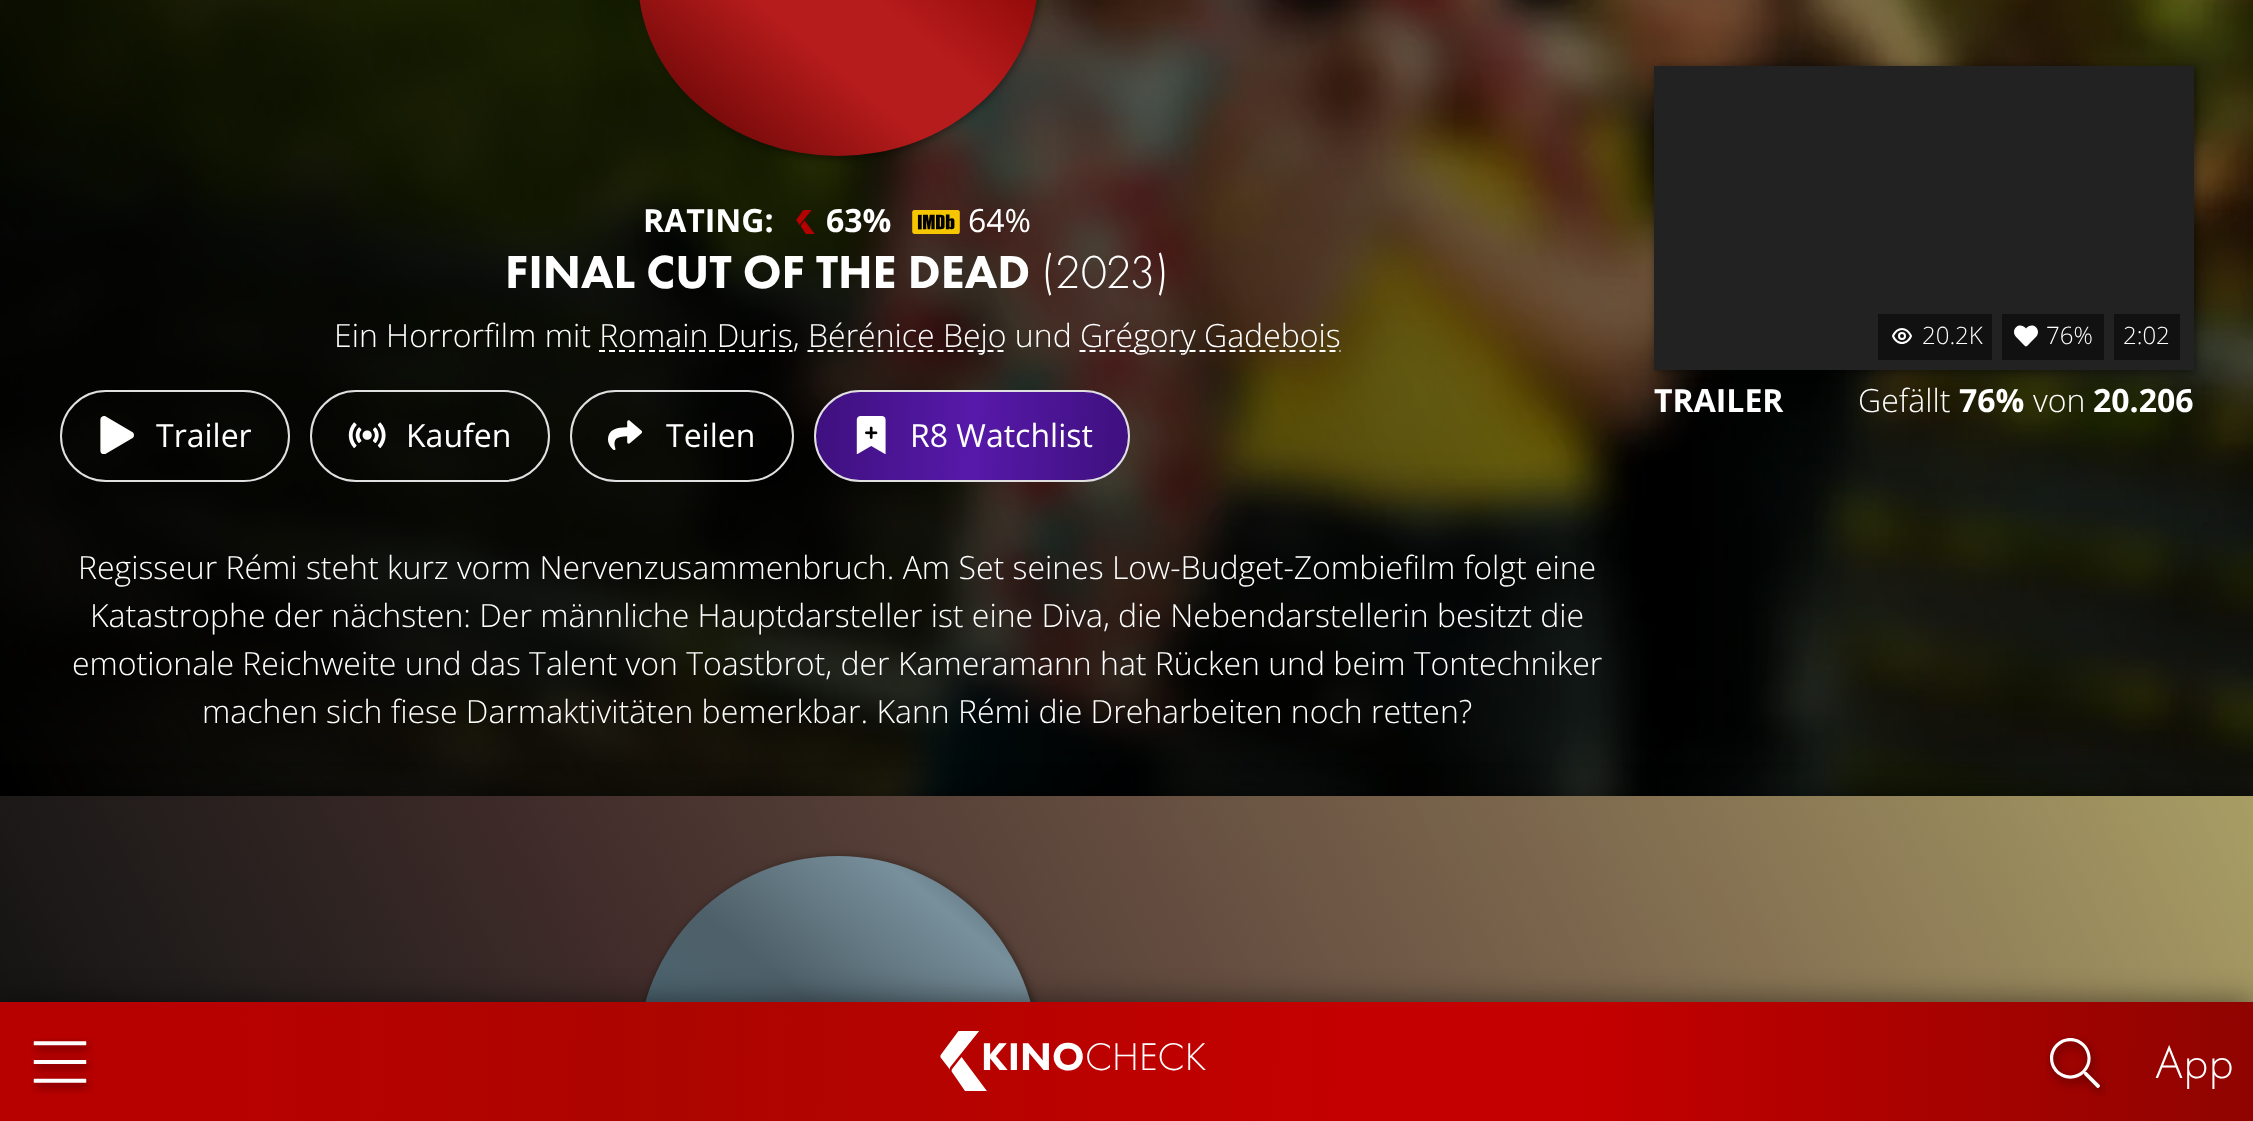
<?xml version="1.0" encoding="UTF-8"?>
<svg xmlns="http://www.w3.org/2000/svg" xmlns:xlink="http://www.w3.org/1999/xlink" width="2253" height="1121">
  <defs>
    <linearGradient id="g1" gradientUnits="userSpaceOnUse" x1="657" y1="172" x2="1019" y2="-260"><stop offset="0.1" stop-color="#710808" /><stop offset="0.35" stop-color="#b71c1c" /><stop offset="0.48" stop-color="#b71c1c" /><stop offset="0.65" stop-color="#970c0c" /><stop offset="1" stop-color="#4f0a03" /></linearGradient>
    <clipPath id="clip1"><rect x="814" y="390" width="316" height="92" rx="46" /></clipPath>
    <linearGradient id="g2" gradientUnits="userSpaceOnUse" x1="814" y1="428" x2="1130" y2="444"><stop offset="0" stop-color="#3e107e" /><stop offset="0.5" stop-color="#5719aa" /><stop offset="1" stop-color="#3e107e" /></linearGradient>
    <linearGradient id="g3" gradientUnits="userSpaceOnUse" x1="128" y1="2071" x2="2126" y2="619"><stop offset="0" stop-color="#abecd6" /><stop offset="0.42" stop-color="#feada6" /><stop offset="1" stop-color="#fbed96" /></linearGradient>
    <linearGradient id="g4" gradientUnits="userSpaceOnUse" x1="-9" y1="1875" x2="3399" y2="286"><stop offset="0" stop-color="#000000" /><stop offset="1" stop-color="#000000" stop-opacity="0" /></linearGradient>
    <linearGradient id="g5" gradientUnits="userSpaceOnUse" x1="657" y1="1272" x2="1019" y2="840"><stop offset="0.07" stop-color="#263238" /><stop offset="0.25" stop-color="#496571" /><stop offset="0.54" stop-color="#4e6069" /><stop offset="0.82" stop-color="#78909c" /><stop offset="1" stop-color="#455a64" /></linearGradient>
    <linearGradient id="g6" gradientUnits="userSpaceOnUse" x1="-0.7" y1="1042" x2="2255" y2="1082"><stop offset="0.1" stop-color="#b70100" /><stop offset="0.3" stop-color="#ac0500" /><stop offset="0.6" stop-color="#c40000" /><stop offset="0.7" stop-color="#c40000" /><stop offset="1" stop-color="#8f0400" /></linearGradient>
  </defs>
  <rect width="100%" height="100%" fill="#ffffff" />
  <image x="0" y="0" width="2253" height="796" xlink:href="image1.png" />
  <rect x="640" y="-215" width="400" height="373" rx="200" fill="#000000" fill-opacity="0.5" filter="blur(5px)" />
  <rect x="638" y="-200" width="400" height="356" rx="200" fill="url(#g1)" />
  <image x="796" y="210" width="19" height="24" xlink:href="image2.png" />
  <image x="912" y="210" width="48" height="24" xlink:href="image3.png" />
  <path d="M 807.5 351 h 198.5" fill="none" stroke="#ffffff" stroke-width="2" stroke-dasharray="6 4" />
  <path d="M 1079.5 351 h 261" fill="none" stroke="#ffffff" stroke-width="2" stroke-dasharray="6 4" />
  <path d="M 599 351 h 193.5" fill="none" stroke="#ffffff" stroke-width="2" stroke-dasharray="6 4" />
  <rect x="61" y="391" width="228" height="90" rx="45" fill="none" stroke="#e0e0e0" stroke-width="2" />
  <image x="100" y="416" width="34" height="38" xlink:href="image4.png" />
  <rect x="311" y="391" width="238" height="90" rx="45" fill="none" stroke="#e0e0e0" stroke-width="2" />
  <image x="348" y="422" width="38" height="26" xlink:href="image5.png" />
  <rect x="571" y="391" width="222" height="90" rx="45" fill="none" stroke="#e0e0e0" stroke-width="2" />
  <image x="608" y="420" width="34" height="30" xlink:href="image6.png" />
  <g clip-path="url(#clip1)">
    <rect x="816" y="392" width="312" height="88" fill="url(#g2)" />
  </g>
  <rect x="815" y="391" width="314" height="90" rx="45" fill="none" stroke="#e0e0e0" stroke-width="2" />
  <image x="856" y="416" width="30" height="38" xlink:href="image7.png" />
  <rect x="1656" y="68" width="540" height="304" fill="#000000" fill-opacity="0.5" filter="blur(5px)" />
  <rect x="1654" y="66" width="540" height="304" fill="#222222" />
  <rect x="1878" y="314" width="114" height="46" fill="#111111" />
  <image x="1892" y="328" width="20" height="16" xlink:href="image8.png" />
  <rect x="2002" y="314" width="102" height="46" fill="#111111" />
  <image x="2014" y="325" width="24" height="22" xlink:href="image9.png" />
  <rect x="2114" y="314" width="66" height="46" fill="#111111" />
  <rect y="796" width="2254" height="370" fill="#000000" fill-opacity="0.5" filter="blur(15px)" />
  <rect y="796" width="2253" height="206" fill="url(#g3)" />
  <rect y="796" width="2253" height="206" fill="url(#g4)" />
  <rect x="640" y="858" width="400" height="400" rx="200" fill="#000000" fill-opacity="0.5" filter="blur(5px)" />
  <circle cx="838" cy="1056" r="200" fill="url(#g5)" />
  <rect y="1002" width="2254" height="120" fill="#000000" fill-opacity="0.5" filter="blur(15px)" />
  <rect y="1002" width="2253" height="119" fill="url(#g6)" />
  <image x="31" y="1038" width="62" height="56" xlink:href="image10.png" />
  <image x="2046" y="1036" width="60" height="60" xlink:href="image12.png" />
  <text x="643" y="232" style="font-family: Open Sans; font-size: 32px; font-weight: bold; fill: #ffffff">RATING:</text>
  <text x="826" y="232" style="font-family: Open Sans; font-size: 32px; font-weight: bold; fill: #ffffff">63%</text>
  <text x="968" y="232" style="font-family: Open Sans; font-size: 32px; fill: #ffffff">64%</text>
  <text x="505" y="288" style="font-family: 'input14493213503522'; font-size: 48px; fill: #ffffff">FINAL CUT OF THE DEAD</text>
  <text x="1041" y="288" style="font-family: 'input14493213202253'; font-size: 48px; fill: #ffffff">(2023)</text>
  <text x="334" y="347" style="font-family: Open Sans; font-size: 32px; font-weight: 300; fill: #ffffff">Ein Horrorfilm mit Romain Duris,</text>
  <text x="808" y="347" style="font-family: Open Sans; font-size: 32px; font-weight: 300; fill: #ffffff">Bérénice Bejo und</text>
  <text x="1080" y="347" style="font-family: Open Sans; font-size: 32px; font-weight: 300; fill: #ffffff">Grégory Gadebois</text>
  <text x="156" y="447" style="font-family: Open Sans; font-size: 32px; fill: #ffffff">Trailer</text>
  <text x="406" y="447" style="font-family: Open Sans; font-size: 32px; fill: #ffffff">Kaufen</text>
  <text x="666" y="447" style="font-family: Open Sans; font-size: 32px; fill: #ffffff">Teilen</text>
  <text x="910" y="447" style="font-family: Open Sans; font-size: 32px; fill: #ffffff">R8 Watchlist</text>
  <text x="78" y="579" style="font-family: Open Sans; font-size: 32px; font-weight: 300; fill: #ffffff">Regisseur Rémi steht kurz vorm Nervenzusammenbruch. Am Set seines Low-Budget-Zombiefilm folgt eine</text>
  <text x="90" y="627" style="font-family: Open Sans; font-size: 32px; font-weight: 300; fill: #ffffff">Katastrophe der nächsten: Der männliche Hauptdarsteller ist eine Diva, die Nebendarstellerin besitzt die</text>
  <text x="72" y="675" style="font-family: Open Sans; font-size: 32px; font-weight: 300; fill: #ffffff">emotionale Reichweite und das Talent von Toastbrot, der Kameramann hat Rücken und beim Tontechniker</text>
  <text x="202" y="723" style="font-family: Open Sans; font-size: 32px; font-weight: 300; fill: #ffffff">machen sich fiese Darmaktivitäten bemerkbar. Kann Rémi die Dreharbeiten noch retten?</text>
  <text x="1922" y="344" style="font-family: Open Sans; font-size: 24px; font-weight: 300; fill: #ffffff">20.2K</text>
  <text x="2046" y="344" style="font-family: Open Sans; font-size: 24px; font-weight: 300; fill: #ffffff">76%</text>
  <text x="2123" y="344" style="font-family: Open Sans; font-size: 24px; font-weight: 300; fill: #ffffff">2:02</text>
  <text x="1654" y="412" style="font-family: Open Sans; font-size: 32px; font-weight: bold; fill: #ffffff">TRAILER</text>
  <text x="1858" y="412" style="font-family: Open Sans; font-size: 32px; font-weight: 300; fill: #ffffff">Gefällt</text>
  <text x="1959" y="412" style="font-family: Open Sans; font-size: 32px; font-weight: bold; fill: #ffffff">76%</text>
  <text x="2033" y="412" style="font-family: Open Sans; font-size: 32px; font-weight: 300; fill: #ffffff">von</text>
  <text x="2093" y="412" style="font-family: Open Sans; font-size: 32px; font-weight: bold; fill: #ffffff">20.206</text>
  <text x="981" y="1070" style="font-family: 'input14493213503522'; font-size: 40px; fill: #ffffff">KINO</text>
  <image x="940" y="1031" width="47" height="60" xlink:href="image11.png" />
  <text x="1085" y="1070" style="font-family: 'input14493213202253'; font-size: 40px; fill: #ffffff">CHECK</text>
  <text x="2155" y="1078" style="font-family: 'input14493213202253'; font-size: 48px; letter-spacing: 0.5px; fill: #ffffff">App</text>
</svg>
